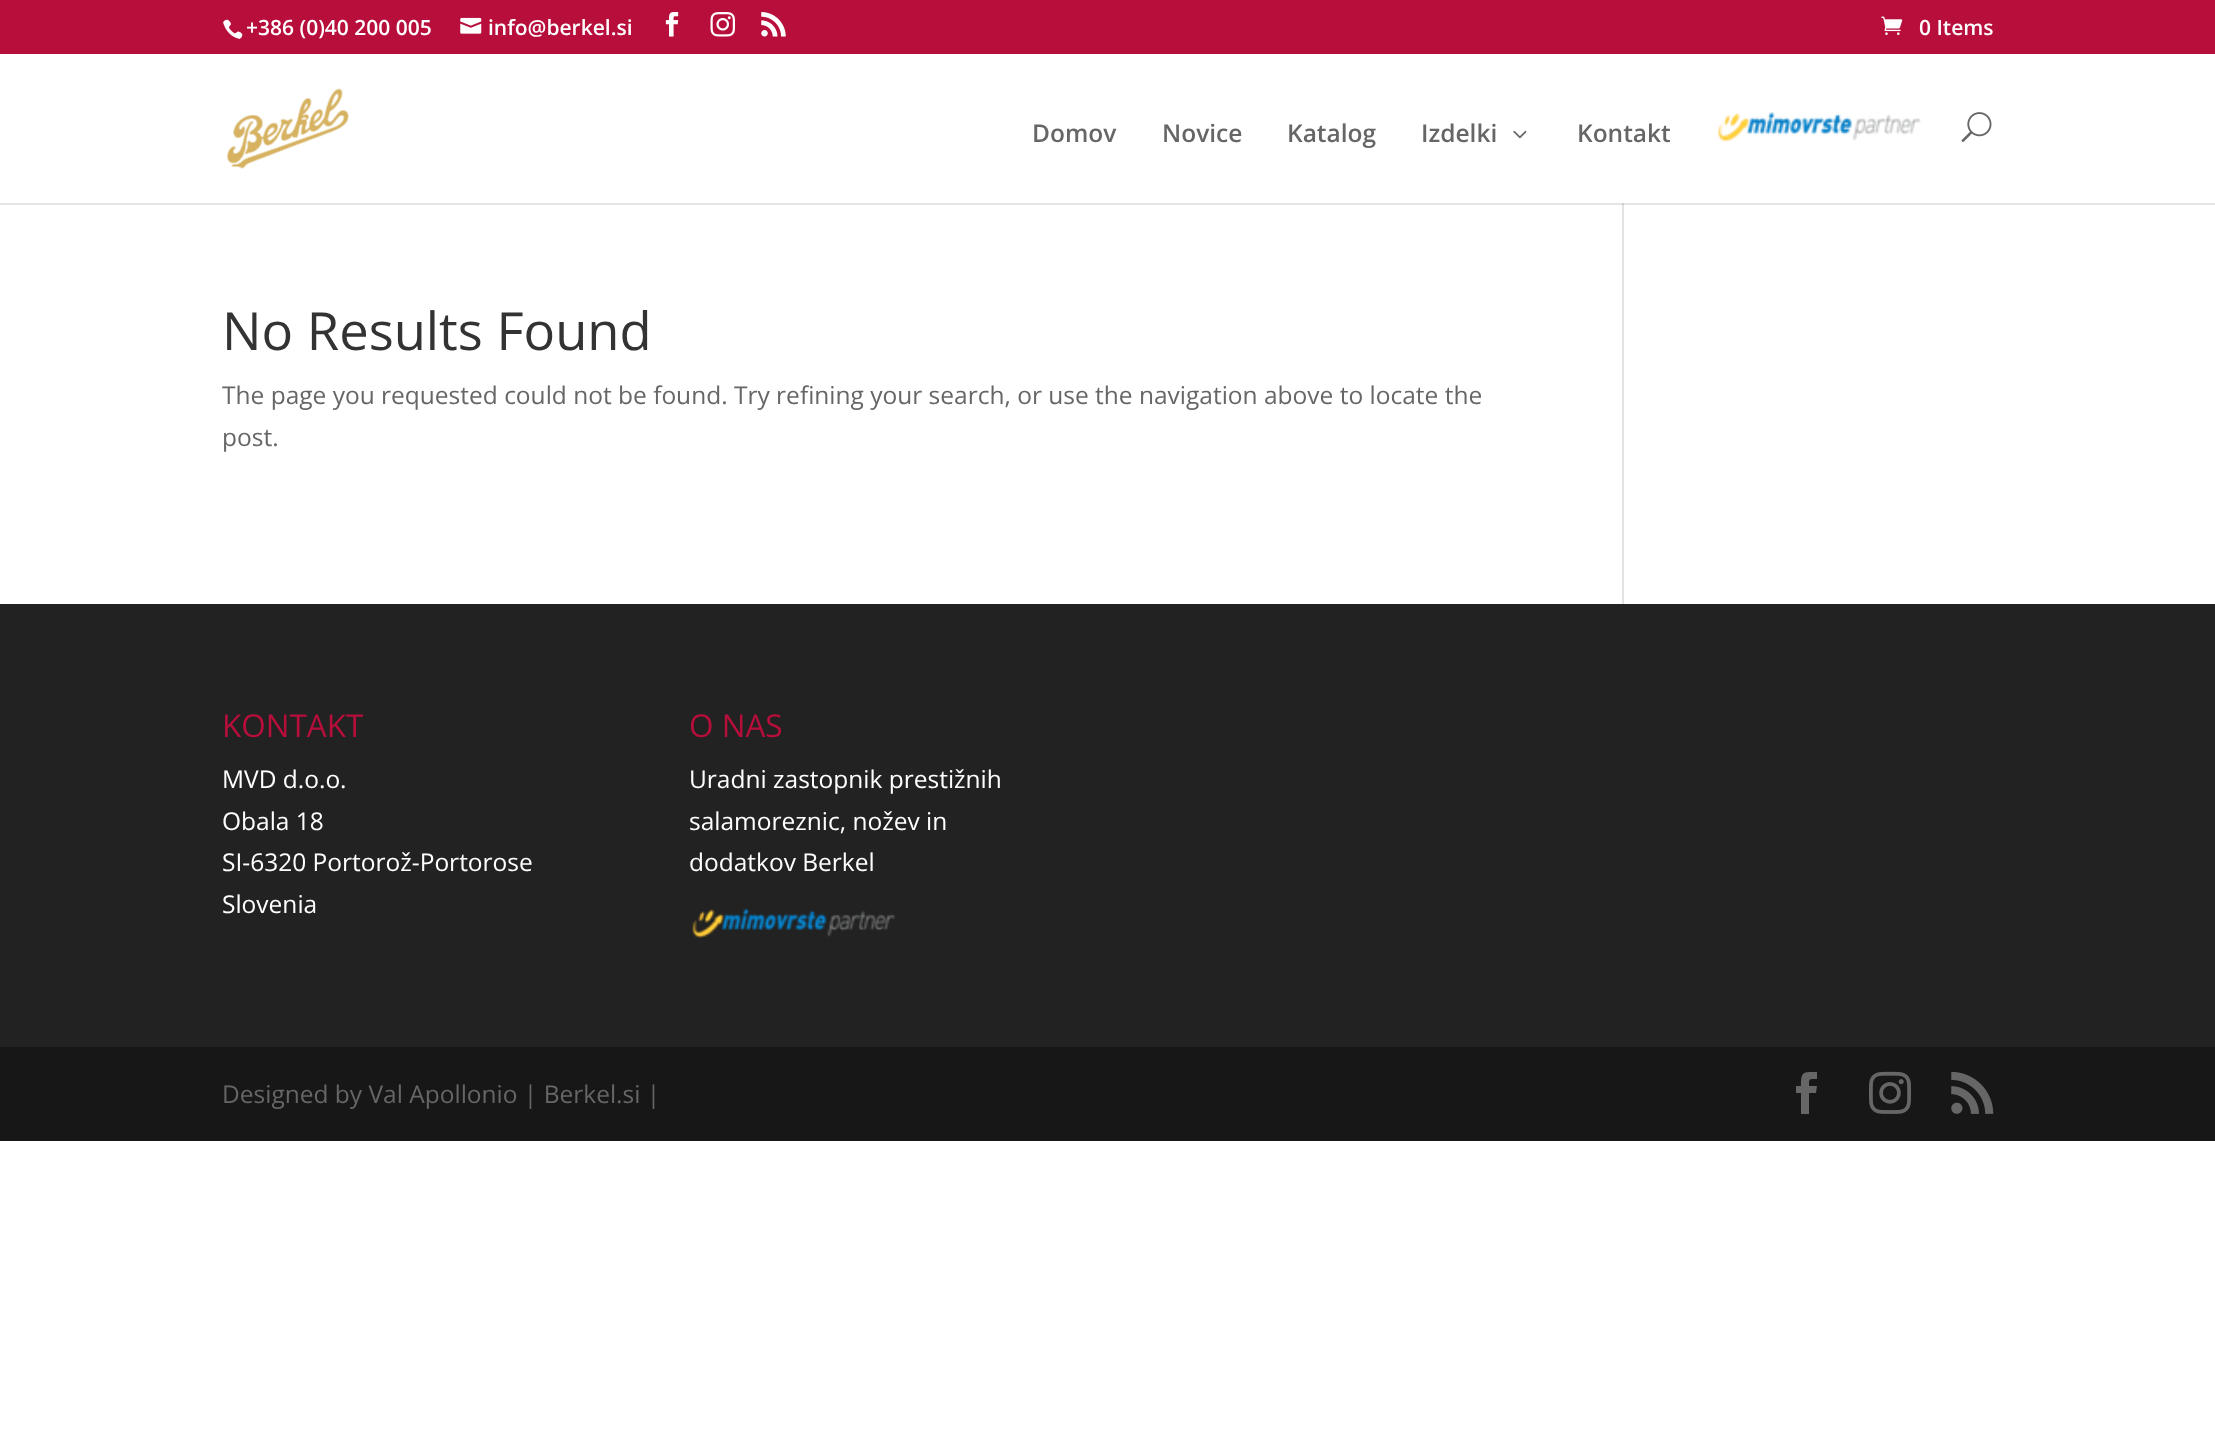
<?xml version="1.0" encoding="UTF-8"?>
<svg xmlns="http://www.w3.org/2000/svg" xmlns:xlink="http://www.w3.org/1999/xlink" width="2215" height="1448">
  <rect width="100%" height="100%" fill="#ffffff" />
  <rect width="2215" height="54" fill="#b70e3b" />
  <image x="223" y="19" width="20" height="20" xlink:href="image1.png" />
  <image x="460" y="17" width="22" height="17" xlink:href="image2.png" />
  <image x="665" y="12" width="14" height="25" xlink:href="image3.png" />
  <image x="710" y="12" width="25" height="25" xlink:href="image4.png" />
  <image x="761" y="12" width="25" height="25" xlink:href="image5.png" />
  <image x="1881" y="16" width="22" height="19" xlink:href="image6.png" />
  <rect x="1622" y="203" width="2" height="401" fill="#e2e2e2" />
  <path d="M 0 203 v 2 h 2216 v -149 v 147 z" fill="#000000" fill-opacity="0.1" />
  <image x="227" y="88" width="122" height="81" xlink:href="image7.png" />
  <image x="1513" y="130" width="14" height="9" xlink:href="image8.png" />
  <image x="1717" y="112" width="204" height="30" xlink:href="image9.png" />
  <image x="1961" y="112" width="31" height="30" xlink:href="image10.png" />
  <rect y="604" width="2215" height="443" fill="#222222" />
  <image x="691" y="908" width="205" height="30" xlink:href="image11.png" />
  <rect y="1047" width="2215" height="94" fill="#171717" />
  <path d="M 1801 1114 h 8 v -21 h 7 l 1 -7 h -8 c 0 -8 0 -7 8 -7 v -7 c -14 0 -16 -1 -16 14 h -5 v 7 h 5 z" fill="#666666" />
  <image x="1869" y="1071" width="42" height="43" xlink:href="image12.png" />
  <image x="1951" y="1071" width="43" height="43" xlink:href="image13.png" />
  <text x="246" y="35" style="font-family: Open Sans; font-size: 21px; font-weight: 600; fill: #ffffff">+386 (0)40 200 005</text>
  <text x="488" y="35" style="font-family: Open Sans; font-size: 21px; font-weight: 600; fill: #ffffff">info@berkel.si</text>
  <text x="1919" y="35" style="font-family: Open Sans; font-size: 21px; font-weight: 600; fill: #ffffff">0 Items</text>
  <text x="1032" y="142" style="font-family: Open Sans; font-size: 24.5px; font-weight: 600; fill: #666666">Domov</text>
  <text x="1162" y="142" style="font-family: Open Sans; font-size: 24.5px; font-weight: 600; fill: #666666">Novice</text>
  <text x="1287" y="142" style="font-family: Open Sans; font-size: 24.5px; font-weight: 600; fill: #666666">Katalog</text>
  <text x="1421" y="142" style="font-family: Open Sans; font-size: 24.5px; font-weight: 600; fill: #666666">Izdelki</text>
  <text x="1577" y="142" style="font-family: Open Sans; font-size: 24.5px; font-weight: 600; fill: #666666">Kontakt</text>
  <text x="222" y="350" style="font-family: Open Sans; font-size: 52.5px; fill: #333333">No Results Found</text>
  <text x="222" y="404" style="font-family: Open Sans; font-size: 24.5px; fill: #666666">The page you requested could not be found. Try refining your search, or use the navigation above to locate the</text>
  <text x="222" y="446" style="font-family: Open Sans; font-size: 24.5px; fill: #666666">post.</text>
  <text x="222" y="737" style="font-family: Open Sans; font-size: 31.5px; fill: #b70e3b">KONTAKT</text>
  <text x="222" y="788" style="font-family: Open Sans; font-size: 24.5px; fill: #ffffff">MVD d.o.o.</text>
  <text x="222" y="830" style="font-family: Open Sans; font-size: 24.5px; fill: #ffffff">Obala 18</text>
  <text x="222" y="871" style="font-family: Open Sans; font-size: 24.5px; fill: #ffffff">SI-6320 Portorož-Portorose</text>
  <text x="222" y="913" style="font-family: Open Sans; font-size: 24.5px; fill: #ffffff">Slovenia</text>
  <text x="689" y="737" style="font-family: Open Sans; font-size: 31.5px; fill: #b70e3b">O NAS</text>
  <text x="689" y="788" style="font-family: Open Sans; font-size: 24.5px; fill: #ffffff">Uradni zastopnik prestižnih</text>
  <text x="689" y="830" style="font-family: Open Sans; font-size: 24.5px; fill: #ffffff">salamoreznic, nožev in</text>
  <text x="689" y="871" style="font-family: Open Sans; font-size: 24.5px; fill: #ffffff">dodatkov Berkel</text>
  <text x="222" y="1103" style="font-family: Open Sans; font-size: 24.5px; fill: #666666">Designed by Val Apollonio | Berkel.si |</text>
</svg>
